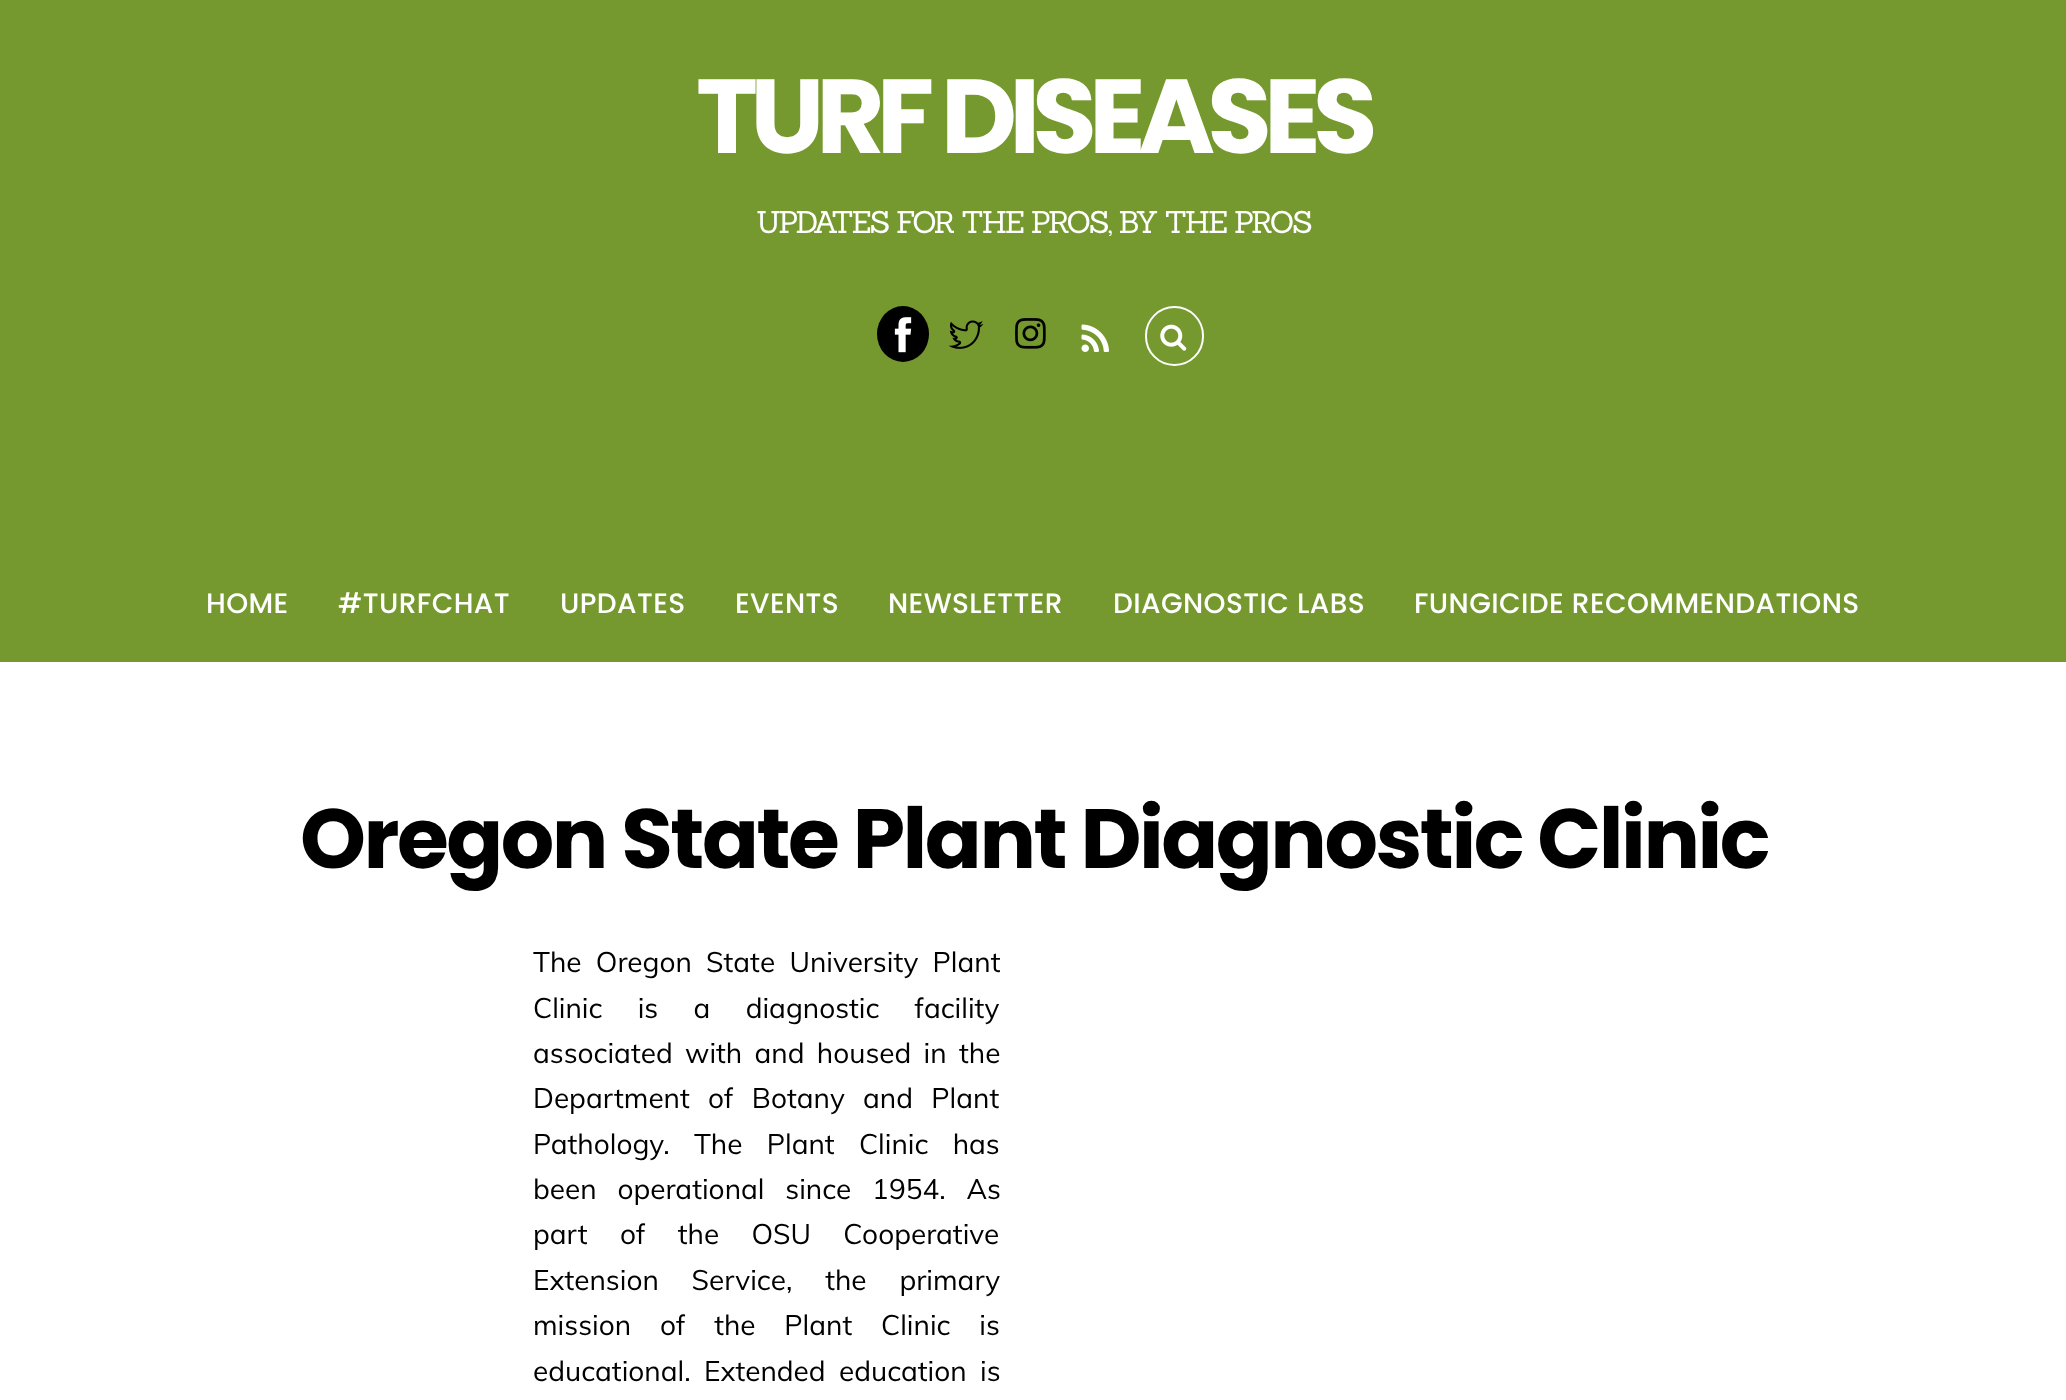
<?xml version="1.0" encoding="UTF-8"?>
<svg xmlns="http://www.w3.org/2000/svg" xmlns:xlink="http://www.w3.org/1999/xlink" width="2066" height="1400">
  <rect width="100%" height="100%" fill="#ffffff" />
  <rect width="2066" height="662" fill="#75992e" />
  <ellipse cx="903" cy="334" rx="26" ry="28" fill="#000000" />
  <image x="894" y="317" width="18" height="36" xlink:href="image1.png" />
  <image x="948" y="320" width="36" height="29" xlink:href="image2.png" />
  <image x="1015" y="318" width="31" height="31" xlink:href="image3.png" />
  <image x="1081" y="324" width="28" height="28" xlink:href="image4.png" />
  <rect x="1146" y="307" width="57" height="58" rx="28.5" fill="none" stroke="#ffffff" stroke-width="2" />
  <image x="1160" y="324" width="27" height="27" xlink:href="image5.png" />
  <text x="696" y="153" style="font-family: Poppins; font-size: 105px; font-weight: bold; letter-spacing: -7.9px; fill: #ffffff">TURF DISEASES</text>
  <text x="756" y="233" style="font-family: Sanchez; font-size: 30.75px; letter-spacing: -1.85px; fill: #ffffff">UPDATES FOR THE PROS, BY THE PROS</text>
  <text x="206" y="613" style="font-family: Poppins; font-size: 28px; font-weight: 500; letter-spacing: 0.4px; fill: #ffffff">HOME</text>
  <text x="338" y="613" style="font-family: Poppins; font-size: 28px; font-weight: 500; letter-spacing: 0.4px; fill: #ffffff">#TURFCHAT</text>
  <text x="560" y="613" style="font-family: Poppins; font-size: 28px; font-weight: 500; letter-spacing: 0.4px; fill: #ffffff">UPDATES</text>
  <text x="735" y="613" style="font-family: Poppins; font-size: 28px; font-weight: 500; letter-spacing: 0.4px; fill: #ffffff">EVENTS</text>
  <text x="888" y="613" style="font-family: Poppins; font-size: 28px; font-weight: 500; letter-spacing: 0.4px; fill: #ffffff">NEWSLETTER</text>
  <text x="1113" y="613" style="font-family: Poppins; font-size: 28px; font-weight: 500; letter-spacing: 0.4px; fill: #ffffff">DIAGNOSTIC LABS</text>
  <text x="1414" y="613" style="font-family: Poppins; font-size: 28px; font-weight: 500; letter-spacing: 0.4px; fill: #ffffff">FUNGICIDE RECOMMENDATIONS</text>
  <text x="300" y="868" style="font-family: Poppins; font-size: 84px; font-weight: bold; letter-spacing: -2.5px; fill: #000000">Oregon State Plant Diagnostic Clinic</text>
  <text x="533" y="972" word-spacing="7" style="font-family: Muli; font-size: 28px; fill: #000000">The Oregon State University Plant</text>
  <text x="533" y="1018" word-spacing="28" style="font-family: Muli; font-size: 28px; fill: #000000">Clinic is a diagnostic facility</text>
  <text x="533" y="1063" word-spacing="5" style="font-family: Muli; font-size: 28px; fill: #000000">associated with and housed in the</text>
  <text x="533" y="1108" word-spacing="11" style="font-family: Muli; font-size: 28px; fill: #000000">Department of Botany and Plant</text>
  <text x="533" y="1154" word-spacing="17" style="font-family: Muli; font-size: 28px; fill: #000000">Pathology. The Plant Clinic has</text>
  <text x="533" y="1199" word-spacing="13.5" style="font-family: Muli; font-size: 28px; fill: #000000">been operational since 1954. As</text>
  <text x="533" y="1244" word-spacing="25" style="font-family: Muli; font-size: 28px; fill: #000000">part of the OSU Cooperative</text>
  <text x="533" y="1290" word-spacing="25.5" style="font-family: Muli; font-size: 28px; fill: #000000">Extension Service, the primary</text>
  <text x="533" y="1335" word-spacing="21.5" style="font-family: Muli; font-size: 28px; fill: #000000">mission of the Plant Clinic is</text>
  <text x="533" y="1381" word-spacing="6" style="font-family: Muli; font-size: 28px; fill: #000000">educational. Extended education is</text>
</svg>
